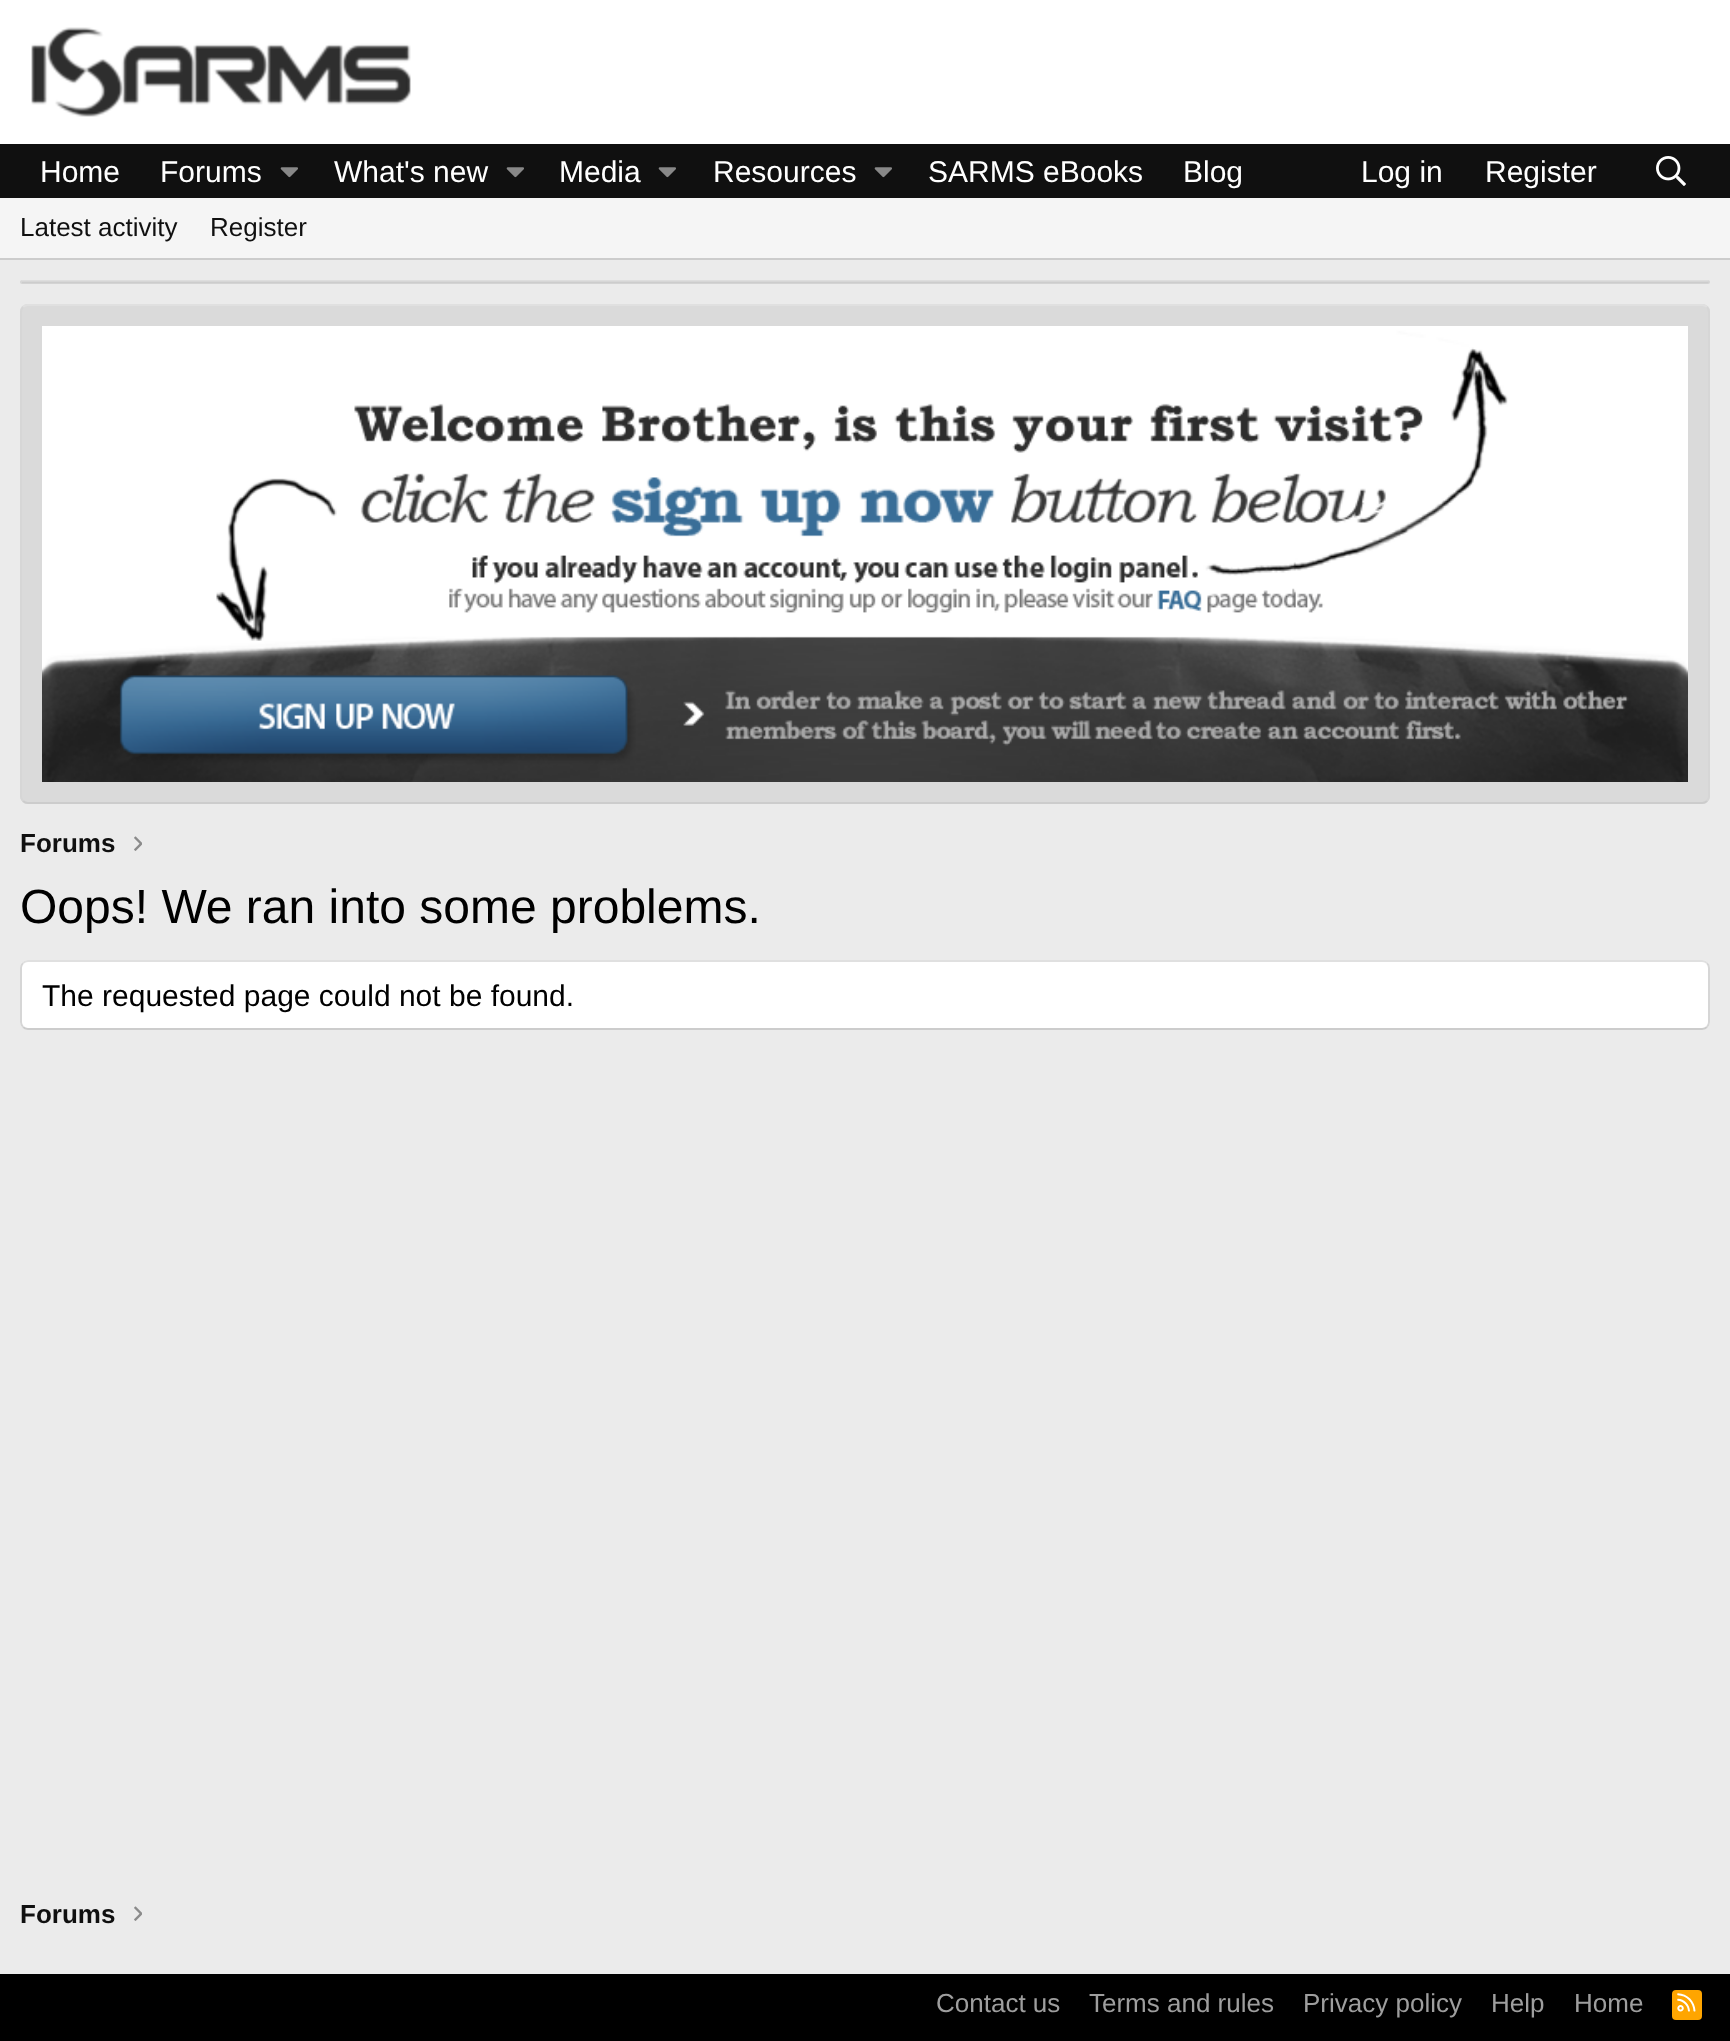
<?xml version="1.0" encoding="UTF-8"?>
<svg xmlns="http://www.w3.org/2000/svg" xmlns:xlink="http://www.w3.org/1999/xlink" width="1730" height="2041">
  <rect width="100%" height="100%" fill="#ebebeb" />
  <rect width="1730" height="144" fill="#ffffff" />
  <image x="31" y="27" width="380" height="90" xlink:href="image1.png" />
  <rect y="144" width="1730" height="54" fill="#101010" />
  <image x="280" y="167" width="18" height="11" xlink:href="image2.png" />
  <image x="506" y="167" width="18" height="11" xlink:href="image2.png" />
  <image x="658" y="167" width="18" height="11" xlink:href="image2.png" />
  <image x="874" y="167" width="18" height="11" xlink:href="image2.png" />
  <image x="1656" y="156" width="30" height="30" xlink:href="image3.png" />
  <rect y="198" width="1730" height="60" fill="#f5f5f5" />
  <rect y="258" width="1730" height="2" fill="#cccccc" />
  <rect x="20" y="280" width="1690" height="4" rx="2" fill="#dadada" />
  <path d="M 21.5 281.5 h 1687" fill="none" stroke="#e0e0e0" stroke-width="2" />
  <path d="M 1708.5 281.5 c 0.5 0 0.5 1 0 1" fill="none" stroke="#d6d6d6" stroke-width="2" />
  <path d="M 1708.5 282.5 h -1687" fill="none" stroke="#cccccc" stroke-width="2" />
  <path d="M 21.5 282.5 c -0.5 0 -0.5 -1 0 -1" fill="none" stroke="#d6d6d6" stroke-width="2" />
  <rect x="20" y="304" width="1690" height="500" rx="8" fill="#dadada" />
  <path d="M 23 307 c 1.5 -1.5 3 -2 5 -2 h 1674 c 2 0 3.5 0.5 5 2" fill="none" stroke="#e0e0e0" stroke-width="2" />
  <path d="M 1707 307 c 1.5 1.5 2 3 2 5 v 484 c 0 2 -0.5 3.5 -2 5" fill="none" stroke="#d6d6d6" stroke-width="2" />
  <path d="M 1707 801 c -1.5 1.5 -3 2 -5 2 h -1674 c -2 0 -3.5 -0.5 -5 -2" fill="none" stroke="#cccccc" stroke-width="2" />
  <path d="M 23 801 c -1.5 -1.5 -2 -3 -2 -5 v -484 c 0 -2 0.5 -3.5 2 -5" fill="none" stroke="#d6d6d6" stroke-width="2" />
  <image x="42" y="326" width="1646" height="456" xlink:href="image4.png" />
  <image x="134" y="836" width="8" height="15" xlink:href="image5.png" />
  <rect x="20" y="960" width="1690" height="70" rx="8" fill="#ffffff" />
  <path d="M 23 963 c 1.5 -1.5 3 -2 5 -2 h 1674 c 2 0 3.5 0.5 5 2" fill="none" stroke="#e0e0e0" stroke-width="2" />
  <path d="M 1707 963 c 1.5 1.5 2 3 2 5 v 54 c 0 2 -0.5 3.5 -2 5" fill="none" stroke="#d6d6d6" stroke-width="2" />
  <path d="M 1707 1027 c -1.5 1.5 -3 2 -5 2 h -1674 c -2 0 -3.5 -0.5 -5 -2" fill="none" stroke="#cccccc" stroke-width="2" />
  <path d="M 23 1027 c -1.5 -1.5 -2 -3 -2 -5 v -54 c 0 -2 0.5 -3.5 2 -5" fill="none" stroke="#d6d6d6" stroke-width="2" />
  <image x="134" y="1906" width="8" height="15" xlink:href="image5.png" />
  <rect y="1974" width="1730" height="67" fill="#000000" />
  <rect x="1672" y="1990" width="30" height="30" rx="4" fill="#ffa500" />
  <image x="1677" y="1993" width="19" height="19" xlink:href="image6.png" />
  <text x="40" y="182" style="font-family: Liberation Sans; font-size: 30px; fill: #ffffff">Home</text>
  <text x="160" y="182" style="font-family: Liberation Sans; font-size: 30px; fill: #ffffff">Forums</text>
  <text x="334" y="182" style="font-family: Liberation Sans; font-size: 30px; fill: #ffffff">What's new</text>
  <text x="559" y="182" style="font-family: Liberation Sans; font-size: 30px; fill: #ffffff">Media</text>
  <text x="713" y="182" style="font-family: Liberation Sans; font-size: 30px; fill: #ffffff">Resources</text>
  <text x="928" y="182" style="font-family: Liberation Sans; font-size: 30px; fill: #ffffff">SARMS eBooks</text>
  <text x="1183" y="182" style="font-family: Liberation Sans; font-size: 30px; fill: #ffffff">Blog</text>
  <text x="1361" y="182" style="font-family: Liberation Sans; font-size: 30px; fill: #ffffff">Log in</text>
  <text x="1485" y="182" style="font-family: Liberation Sans; font-size: 30px; fill: #ffffff">Register</text>
  <text x="20" y="236" style="font-family: Liberation Sans; font-size: 26px; fill: #101010">Latest activity</text>
  <text x="210" y="236" style="font-family: Liberation Sans; font-size: 26px; fill: #101010">Register</text>
  <text x="20" y="852" style="font-family: Liberation Sans; font-size: 26px; font-weight: bold; fill: #101010">Forums</text>
  <text x="20" y="923" style="font-family: Liberation Sans; font-size: 48px; fill: #000000">Oops! We ran into some problems.</text>
  <text x="42" y="1006" style="font-family: Liberation Sans; font-size: 30px; fill: #000000">The requested page could not be found.</text>
  <text x="20" y="1923" style="font-family: Liberation Sans; font-size: 26px; font-weight: bold; fill: #101010">Forums</text>
  <text x="936" y="2012" style="font-family: Liberation Sans; font-size: 26px; fill: #9e9e9e">Contact us</text>
  <text x="1089" y="2012" style="font-family: Liberation Sans; font-size: 26px; fill: #9e9e9e">Terms and rules</text>
  <text x="1303" y="2012" style="font-family: Liberation Sans; font-size: 26px; fill: #9e9e9e">Privacy policy</text>
  <text x="1491" y="2012" style="font-family: Liberation Sans; font-size: 26px; fill: #9e9e9e">Help</text>
  <text x="1574" y="2012" style="font-family: Liberation Sans; font-size: 26px; fill: #9e9e9e">Home</text>
</svg>
